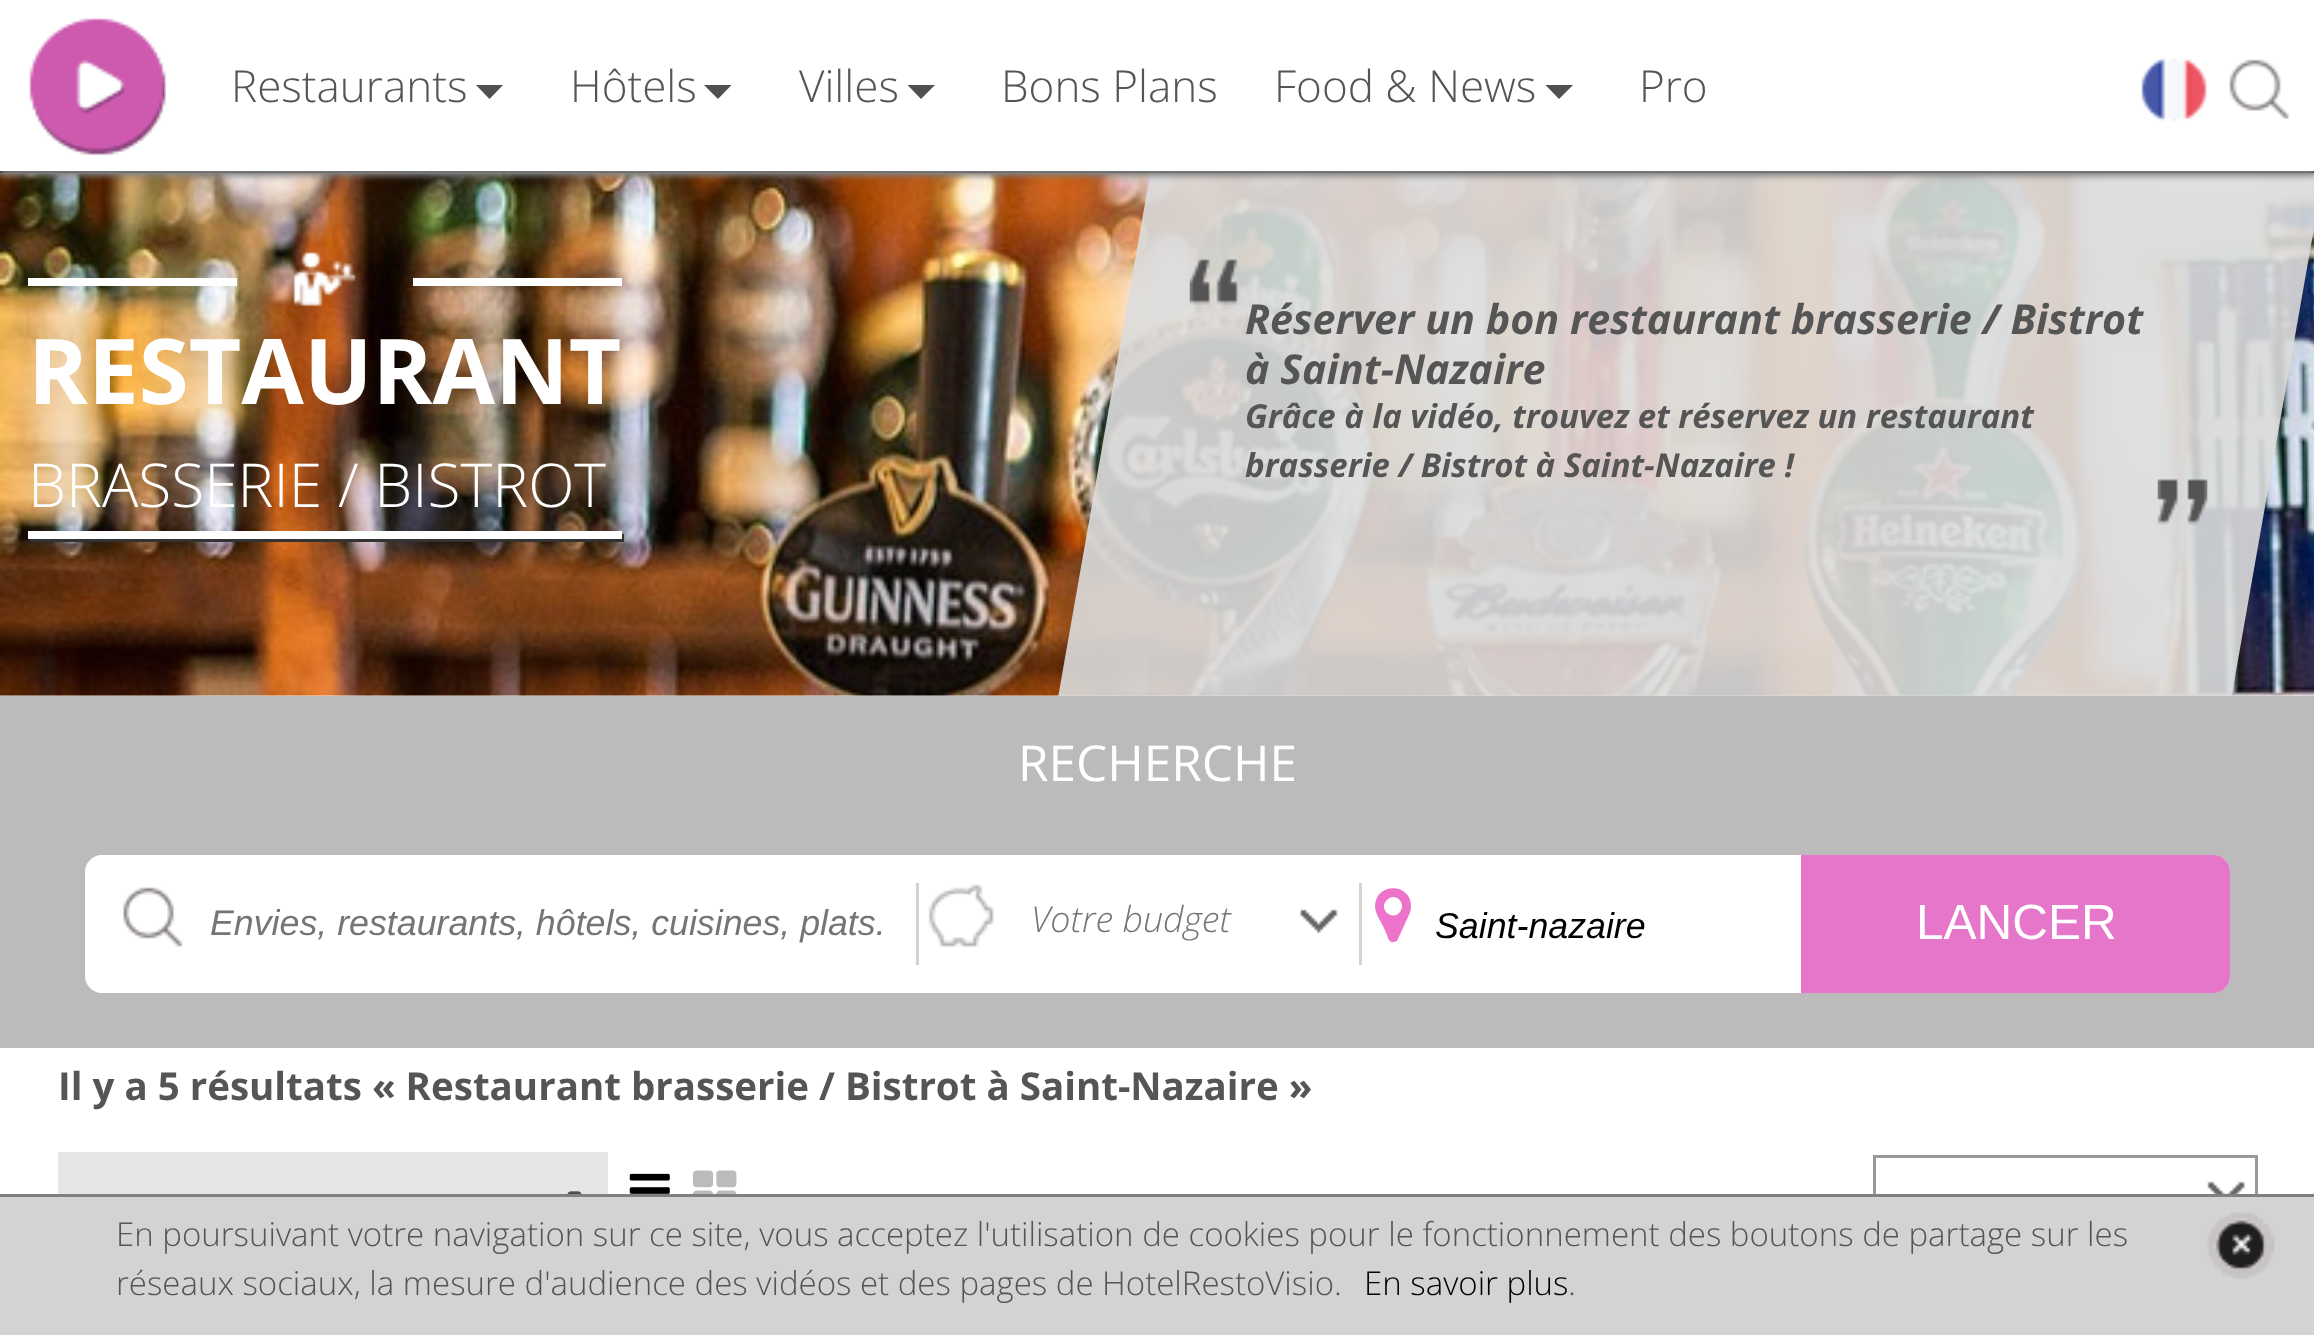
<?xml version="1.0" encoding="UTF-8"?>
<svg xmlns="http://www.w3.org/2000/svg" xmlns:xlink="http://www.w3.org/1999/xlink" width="2314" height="1335">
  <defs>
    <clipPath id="clip1"><rect y="173" width="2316" height="523" /></clipPath>
  </defs>
  <rect width="100%" height="100%" fill="#ffffff" />
  <image x="0" y="173" width="2314" height="523" xlink:href="image5.png" />
  <image x="0" y="171" width="2314" height="3" xlink:href="image1.png" />
  <g clip-path="url(#clip1)">
    <path d="M 1191 -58 l 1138 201 l -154 875 l -1138 -201 z" fill="#dcdcdc" fill-opacity="0.9" />
  </g>
  <rect y="6" width="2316" height="170" fill="#808080" filter="blur(3px)" />
  <rect width="2314" height="171" fill="#ffffff" />
  <image x="29" y="18" width="137" height="137" xlink:href="image2.png" />
  <path d="M 476 85 h 27 l -13.5 14 z" fill="#505050" />
  <path d="M 704 85 h 27.5 l -13.5 14 z" fill="#505050" />
  <path d="M 907.5 85 h 27.5 l -14 14 z" fill="#505050" />
  <path d="M 1545.5 85 h 27.5 l -14 14 z" fill="#505050" />
  <image x="2141" y="57" width="66" height="65" xlink:href="image3.png" />
  <image x="2229" y="59" width="61" height="61" xlink:href="image4.png" />
  <rect x="28" y="278" width="209" height="8" fill="#ffffff" />
  <image x="293" y="252" width="63" height="55" xlink:href="image6.png" />
  <rect x="413" y="278" width="209" height="8" fill="#ffffff" />
  <path d="M 30 539 v 3 h 594 v -8 h -2 v 5 z" fill="#333333" />
  <rect x="28" y="531" width="594" height="8" fill="#ffffff" />
  <image x="1189" y="259" width="49" height="46" xlink:href="image7.png" />
  <image x="2157" y="479" width="51" height="46" xlink:href="image8.png" />
  <rect y="696" width="2314" height="352" fill="#bcbabb" />
  <rect x="85" y="855" width="2145" height="138" rx="17" fill="#ffffff" />
  <image x="123" y="887" width="60" height="60" xlink:href="image9.png" />
  <rect x="916" y="883" width="3" height="82" fill="#d3d3d3" />
  <image x="928" y="884" width="66" height="63" xlink:href="image10.png" />
  <image x="1300" y="909" width="38" height="25" xlink:href="image11.png" />
  <rect x="1359" y="883" width="3" height="82" fill="#d3d3d3" />
  <path d="M 1399 913 c 9 -9 -4 -22 -12 -13 c -9 8 4 21 12 13 z m 12 -7 c 0 4 -1 7 -3 11 l -11 24 l -3 1 c -5 1 -6 -4 -7 -7 l -4 -9 c -3 -6 -8 -13 -8 -20 c 1 -24 36 -23 36 0 z" fill="#ed73cb" />
  <path d="M 1801 855 h 412 c 9.5 0 17 7.5 17 17 v 104 c 0 9.5 -7.5 17 -17 17 h -412 z" fill="#e576c9" />
  <rect x="59.5" y="1153.5" width="547" height="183" fill="none" stroke="#e6e6e6" stroke-width="3" />
  <rect x="61" y="1155" width="544" height="39" fill="#e6e6e6" />
  <image x="567" y="1191" width="15" height="3" xlink:href="image12.png" />
  <image x="629" y="1173" width="41" height="21" xlink:href="image13.png" />
  <image x="693" y="1170" width="44" height="24" xlink:href="image14.png" />
  <rect x="1874.5" y="1156.5" width="382" height="77" fill="none" stroke="#999999" stroke-width="3" />
  <image x="2207" y="1181" width="38" height="13" xlink:href="image15.png" />
  <rect y="1197" width="2314" height="138" fill="#d3d3d3" />
  <rect y="1194" width="2314" height="3" fill="#808080" />
  <image x="2207" y="1212" width="68" height="67" xlink:href="image16.png" />
  <text x="231" y="102" style="font-family: Open Sans; font-size: 44px; font-weight: 300; fill: #555555">Restaurants</text>
  <text x="570" y="102" style="font-family: Open Sans; font-size: 44px; font-weight: 300; fill: #555555">Hôtels</text>
  <text x="799" y="102" style="font-family: Open Sans; font-size: 44px; font-weight: 300; fill: #555555">Villes</text>
  <text x="1001" y="102" style="font-family: Open Sans; font-size: 44px; font-weight: 300; fill: #555555">Bons Plans</text>
  <text x="1274" y="102" style="font-family: Open Sans; font-size: 44px; font-weight: 300; fill: #555555">Food &amp; News</text>
  <text x="1639" y="102" style="font-family: Open Sans; font-size: 44px; font-weight: 300; fill: #555555">Pro</text>
  <text x="28" y="404" style="font-family: Open Sans; font-size: 90.75px; font-weight: bold; fill: #ffffff">RESTAURANT</text>
  <text x="28" y="507" style="font-family: Open Sans; font-size: 60.5px; font-weight: 300; fill: #ffffff">BRASSERIE / BISTROT</text>
  <text x="1245" y="334" style="font-family: Open Sans; font-size: 41.25px; font-weight: bold; font-style: italic; fill: #555555">Réserver un bon restaurant brasserie / Bistrot</text>
  <text x="1245" y="384" style="font-family: Open Sans; font-size: 41.25px; font-weight: bold; font-style: italic; fill: #555555">à Saint-Nazaire</text>
  <text x="1245" y="428" style="font-family: Open Sans; font-size: 33px; font-weight: bold; font-style: italic; fill: #555555">Grâce à la vidéo, trouvez et réservez un restaurant</text>
  <text x="1245" y="477" style="font-family: Open Sans; font-size: 33px; font-weight: bold; font-style: italic; fill: #555555">brasserie / Bistrot à Saint-Nazaire !</text>
  <text x="1018" y="781" style="font-family: Open Sans; font-size: 49.5px; fill: #ffffff">RECHERCHE</text>
  <text x="210" y="935" style="font-family: Liberation Sans; font-size: 35.75px; font-style: italic; fill: #757575">Envies, restaurants, hôtels, cuisines, plats.</text>
  <text x="1031" y="932" style="font-family: Open Sans; font-size: 35.75px; font-weight: 300; font-style: italic; fill: #757575">Votre budget</text>
  <text x="1435" y="938" style="font-family: Liberation Sans; font-size: 35.75px; font-style: italic; fill: #000000">Saint-nazaire</text>
  <text x="1916" y="939" style="font-family: Liberation Sans; font-size: 49.5px; fill: #ffffff">LANCER</text>
  <text x="58" y="1100" style="font-family: Open Sans; font-size: 38.5px; font-weight: bold; fill: #555555">Il y a 5 résultats « Restaurant brasserie / Bistrot à Saint-Nazaire »</text>
  <text x="116" y="1246" style="font-family: Open Sans; font-size: 33px; font-weight: 300; fill: #555555">En poursuivant votre navigation sur ce site, vous acceptez l'utilisation de cookies pour le fonctionnement des boutons de partage sur les</text>
  <text x="116" y="1295" style="font-family: Open Sans; font-size: 33px; font-weight: 300; fill: #555555">réseaux sociaux, la mesure d'audience des vidéos et des pages de HotelRestoVisio.</text>
  <text x="1364" y="1295" style="font-family: Open Sans; font-size: 33px; font-weight: 300; fill: #000000">En savoir plus</text>
  <text x="1568" y="1295" style="font-family: Open Sans; font-size: 33px; font-weight: 300; fill: #555555">.</text>
</svg>
